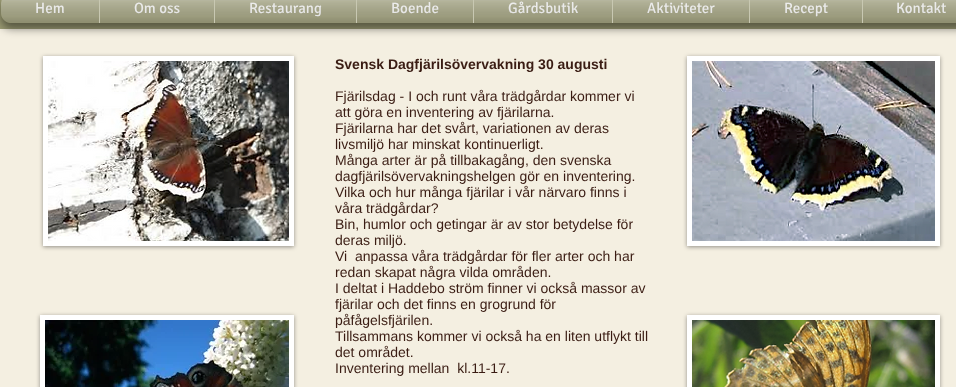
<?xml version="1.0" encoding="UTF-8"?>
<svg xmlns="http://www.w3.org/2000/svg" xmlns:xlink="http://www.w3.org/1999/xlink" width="956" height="387">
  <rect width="100%" height="100%" fill="#f4efe1" />
  <rect width="956" height="29" fill="#9d9d75" />
  <rect x="1" y="-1" width="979" height="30" rx="10" fill="#000000" fill-opacity="0.44" filter="blur(4.5px)" />
  <image x="1" y="0" width="10" height="23" xlink:href="image1.png" />
  <image x="1" y="1" width="10" height="22" xlink:href="image2.png" />
  <path d="M 11 -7 h 88 v 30 h -88 c -5.5 0 -10 -4.5 -10 -10 v -10 c 0 -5.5 4.5 -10 10 -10 z" fill="#9d9d75" />
  <rect x="100" width="114" height="23" fill="#9d9d75" />
  <rect x="99" width="1" height="23" fill="#c8c8b2" />
  <rect x="215" width="141" height="23" fill="#9d9d75" />
  <rect x="214" width="1" height="23" fill="#c8c8b2" />
  <rect x="357" width="116" height="23" fill="#9d9d75" />
  <rect x="356" width="1" height="23" fill="#c8c8b2" />
  <rect x="474" width="138" height="23" fill="#9d9d75" />
  <rect x="473" width="1" height="23" fill="#c8c8b2" />
  <rect x="613" width="136" height="23" fill="#9d9d75" />
  <rect x="612" width="1" height="23" fill="#c8c8b2" />
  <rect x="750" width="112" height="23" fill="#9d9d75" />
  <rect x="749" width="1" height="23" fill="#c8c8b2" />
  <rect x="863" width="93" height="23" fill="#9d9d75" />
  <rect x="862" width="1" height="23" fill="#c8c8b2" />
  <rect x="43" y="57" width="251" height="190" fill="#000000" fill-opacity="0.4" filter="blur(2px)" />
  <rect x="43" y="56" width="251" height="190" fill="#ffffff" />
  <image x="48" y="61" width="241" height="180" xlink:href="image19.png" />
  <rect x="687" y="57" width="253" height="190" fill="#000000" fill-opacity="0.4" filter="blur(2px)" />
  <rect x="687" y="56" width="253" height="190" fill="#ffffff" />
  <image x="692" y="61" width="243" height="180" xlink:href="image20.png" />
  <rect x="40" y="316" width="254" height="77" fill="#000000" fill-opacity="0.4" filter="blur(2px)" />
  <rect x="40" y="315" width="254" height="72" fill="#ffffff" />
  <image x="45" y="320" width="244" height="67" xlink:href="image21.png" />
  <rect x="687" y="316" width="253" height="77" fill="#000000" fill-opacity="0.4" filter="blur(2px)" />
  <rect x="687" y="315" width="253" height="72" fill="#ffffff" />
  <image x="692" y="320" width="243" height="67" xlink:href="image22.png" />
  <text x="35" y="13" style="font-family: Signika; font-size: 15px; fill: #ffffff">Hem</text>
  <image x="1" y="0" width="98" height="23" xlink:href="image3.png" />
  <image x="1" y="0" width="98" height="23" xlink:href="image4.png" />
  <text x="134" y="13" style="font-family: Signika; font-size: 15px; fill: #ffffff">Om oss</text>
  <image x="100" y="0" width="114" height="23" xlink:href="image5.png" />
  <image x="100" y="0" width="114" height="23" xlink:href="image6.png" />
  <text x="249" y="13" style="font-family: Signika; font-size: 15px; fill: #ffffff">Restaurang</text>
  <image x="215" y="0" width="141" height="23" xlink:href="image7.png" />
  <image x="215" y="0" width="141" height="23" xlink:href="image8.png" />
  <text x="391" y="13" style="font-family: Signika; font-size: 15px; fill: #ffffff">Boende</text>
  <image x="357" y="0" width="116" height="23" xlink:href="image9.png" />
  <image x="357" y="0" width="116" height="23" xlink:href="image10.png" />
  <text x="508" y="13" style="font-family: Signika; font-size: 15px; fill: #ffffff">Gårdsbutik</text>
  <image x="474" y="0" width="138" height="23" xlink:href="image11.png" />
  <image x="474" y="0" width="138" height="23" xlink:href="image12.png" />
  <text x="647" y="13" style="font-family: Signika; font-size: 15px; fill: #ffffff">Aktiviteter</text>
  <image x="613" y="0" width="136" height="23" xlink:href="image13.png" />
  <image x="613" y="0" width="136" height="23" xlink:href="image14.png" />
  <text x="784" y="13" style="font-family: Signika; font-size: 15px; fill: #ffffff">Recept</text>
  <image x="750" y="0" width="112" height="23" xlink:href="image15.png" />
  <image x="750" y="0" width="112" height="23" xlink:href="image16.png" />
  <text x="896" y="13" style="font-family: Signika; font-size: 15px; fill: #ffffff">Kontakt</text>
  <image x="863" y="0" width="93" height="23" xlink:href="image17.png" />
  <image x="863" y="0" width="93" height="23" xlink:href="image18.png" />
  <text x="335" y="69" style="font-family: Liberation Sans; font-size: 14px; font-weight: bold; fill: #3a1c13">Svensk Dagfjärilsövervakning 30 augusti</text>
  <text x="335" y="101" style="font-family: Liberation Sans; font-size: 14px; fill: #3a1c13">Fjärilsdag - I och runt våra trädgårdar kommer vi</text>
  <text x="335" y="117" style="font-family: Liberation Sans; font-size: 14px; fill: #3a1c13">att göra en inventering av fjärilarna.</text>
  <text x="335" y="133" style="font-family: Liberation Sans; font-size: 14px; fill: #3a1c13">Fjärilarna har det svårt, variationen av deras</text>
  <text x="335" y="149" style="font-family: Liberation Sans; font-size: 14px; fill: #3a1c13">livsmiljö har minskat kontinuerligt.</text>
  <text x="335" y="165" style="font-family: Liberation Sans; font-size: 14px; fill: #3a1c13">Många arter är på tillbakagång, den svenska</text>
  <text x="335" y="181" style="font-family: Liberation Sans; font-size: 14px; fill: #3a1c13">dagfjärilsövervakningshelgen gör en inventering.</text>
  <text x="335" y="197" style="font-family: Liberation Sans; font-size: 14px; fill: #3a1c13">Vilka och hur många fjärilar i vår närvaro finns i</text>
  <text x="335" y="213" style="font-family: Liberation Sans; font-size: 14px; fill: #3a1c13">våra trädgårdar?</text>
  <text x="335" y="229" style="font-family: Liberation Sans; font-size: 14px; fill: #3a1c13">Bin, humlor och getingar är av stor betydelse för</text>
  <text x="335" y="245" style="font-family: Liberation Sans; font-size: 14px; fill: #3a1c13">deras miljö.</text>
  <text x="335" y="261" style="font-family: Liberation Sans; font-size: 14px; fill: #3a1c13" xml:space="preserve">Vi  anpassa våra trädgårdar för fler arter och har</text>
  <text x="335" y="277" style="font-family: Liberation Sans; font-size: 14px; fill: #3a1c13">redan skapat några vilda områden.</text>
  <text x="335" y="293" style="font-family: Liberation Sans; font-size: 14px; fill: #3a1c13">I deltat i Haddebo ström finner vi också massor av</text>
  <text x="335" y="309" style="font-family: Liberation Sans; font-size: 14px; fill: #3a1c13">fjärilar och det finns en grogrund för</text>
  <text x="335" y="325" style="font-family: Liberation Sans; font-size: 14px; fill: #3a1c13">påfågelsfjärilen.</text>
  <text x="335" y="341" style="font-family: Liberation Sans; font-size: 14px; fill: #3a1c13">Tillsammans kommer vi också ha en liten utflykt till</text>
  <text x="335" y="357" style="font-family: Liberation Sans; font-size: 14px; fill: #3a1c13">det området.</text>
  <text x="335" y="373" style="font-family: Liberation Sans; font-size: 14px; fill: #3a1c13" xml:space="preserve">Inventering mellan  kl.11-17.</text>
</svg>
